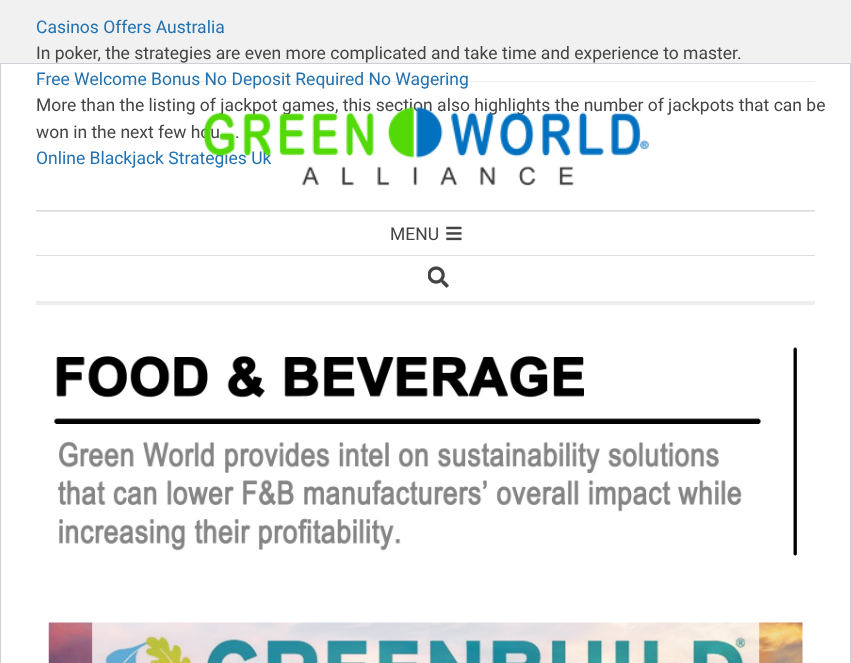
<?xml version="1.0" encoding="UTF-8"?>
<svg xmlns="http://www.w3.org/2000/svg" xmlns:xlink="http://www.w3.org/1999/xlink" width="851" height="663">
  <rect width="100%" height="100%" fill="#f1f1f1" />
  <rect x="0.5" y="63.5" width="850" height="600" fill="#ffffff" stroke="#ccd0d4" />
  <rect x="36" y="81" width="779" height="1" fill="#eeeeee" />
  <rect x="36" y="210" width="779" height="1" fill="#dddddd" />
  <rect x="36" y="301" width="779" height="4" fill="#eeeeee" />
  <rect x="36" y="211" width="779" height="1" fill="#e6e6e6" />
  <image x="446" y="226" width="16" height="15" xlink:href="image2.png" />
  <rect x="36" y="255" width="779" height="1" fill="#dddddd" />
  <image x="428" y="266" width="21" height="22" xlink:href="image3.png" />
  <image x="54" y="347" width="743" height="209" xlink:href="image4.png" />
  <image x="48" y="622" width="755" height="41" xlink:href="image5.png" />
  <text x="36" y="33" style="font-family: Roboto; font-size: 17.5px; fill: #2271b1">Casinos Offers Australia</text>
  <text x="36" y="59" style="font-family: Roboto; font-size: 17.5px; fill: #444444">In poker, the strategies are even more complicated and take time and experience to master.</text>
  <text x="36" y="85" style="font-family: Roboto; font-size: 17.5px; fill: #2271b1">Free Welcome Bonus No Deposit Required No Wagering</text>
  <text x="36" y="111" style="font-family: Roboto; font-size: 17.5px; fill: #444444">More than the listing of jackpot games, this section also highlights the number of jackpots that can be</text>
  <text x="36" y="138" style="font-family: Roboto; font-size: 17.5px; fill: #444444">won in the next few hou</text>
  <text x="235" y="138" style="font-family: Roboto; font-size: 17.5px; fill: #444444">.</text>
  <text x="36" y="164" style="font-family: Roboto; font-size: 17.5px; fill: #2271b1">Online Blackjack Strategies Uk</text>
  <image x="203" y="107" width="446" height="79" xlink:href="image1.png" />
  <text x="390" y="240" style="font-family: Roboto; font-size: 17.5px; fill: #444444">MENU</text>
</svg>
